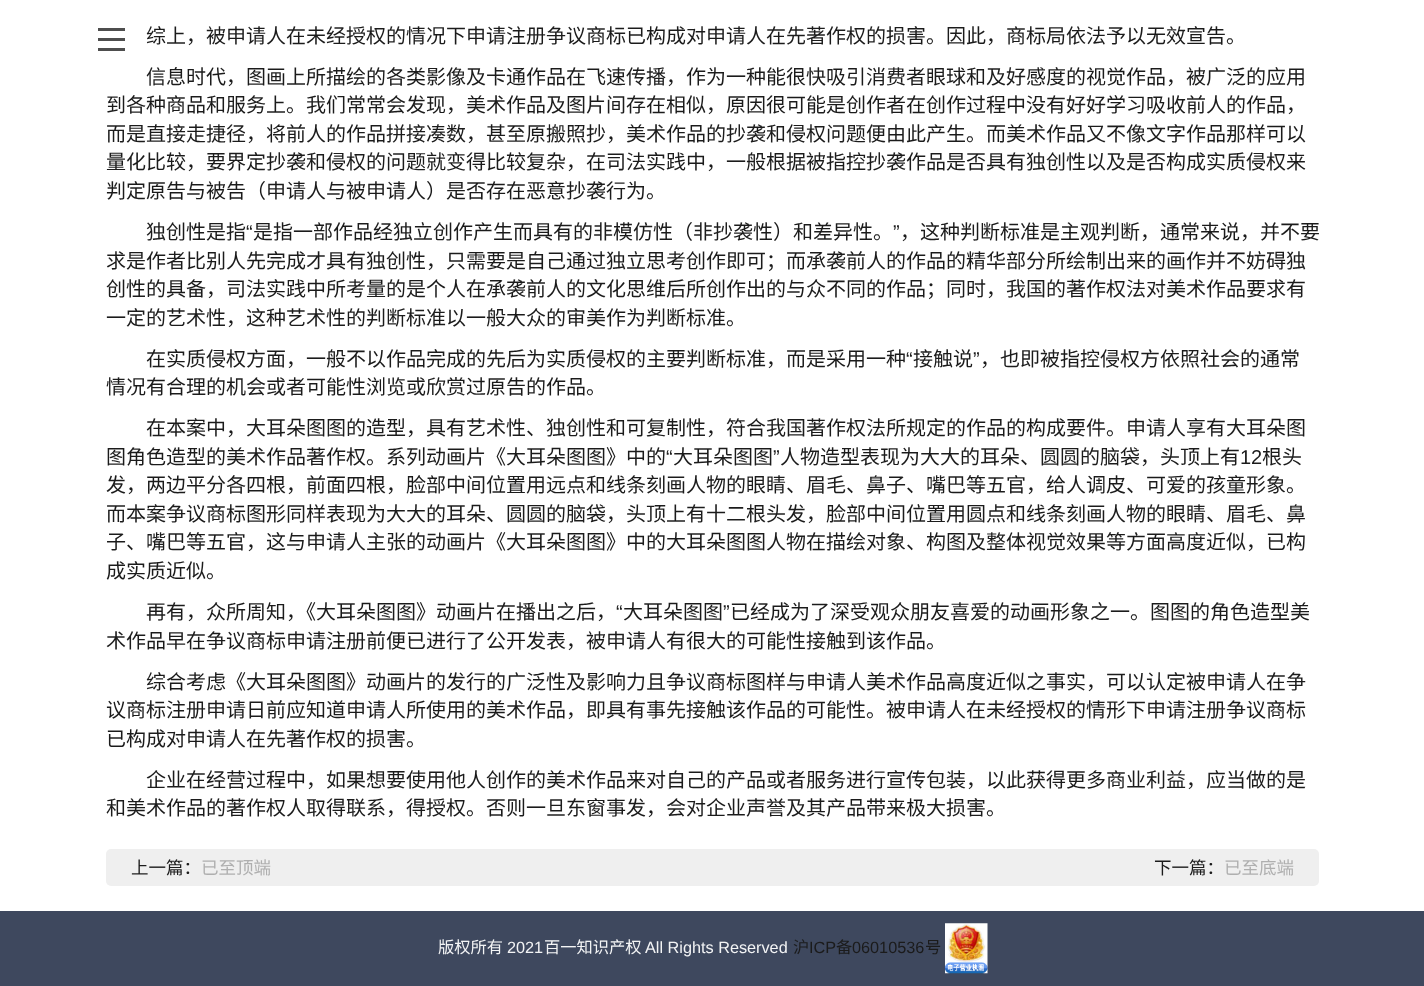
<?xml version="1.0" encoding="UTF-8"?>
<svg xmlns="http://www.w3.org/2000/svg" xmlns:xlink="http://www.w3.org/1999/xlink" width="1424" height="986">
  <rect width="100%" height="100%" fill="#ffffff" />
  <rect x="106" y="849" width="1213" height="37" rx="5" fill="#efefef" />
  <rect x="98" y="28" width="27" height="3" fill="#4e4e4e" />
  <rect x="98" y="38" width="27" height="3" fill="#4e4e4e" />
  <rect x="98" y="48" width="27" height="3" fill="#4e4e4e" />
  <rect y="911" width="1424" height="75" fill="#3e485e" />
  <image x="945" y="923" width="43" height="51" xlink:href="image1.png" />
  <text x="146" y="43" style="font-family: Noto Sans CJK SC; font-size: 20px; fill: #1b1b1b">综上，被申请人在未经授权的情况下申请注册争议商标已构成对申请人在先著作权的损害。因此，商标局依法予以无效宣告。</text>
  <text x="146" y="84" style="font-family: Noto Sans CJK SC; font-size: 20px; fill: #1b1b1b">信息时代，图画上所描绘的各类影像及卡通作品在飞速传播，作为一种能很快吸引消费者眼球和及好感度的视觉作品，被广泛的应用</text>
  <text x="106" y="112" style="font-family: Noto Sans CJK SC; font-size: 20px; fill: #1b1b1b">到各种商品和服务上。我们常常会发现，美术作品及图片间存在相似，原因很可能是创作者在创作过程中没有好好学习吸收前人的作品，</text>
  <text x="106" y="141" style="font-family: Noto Sans CJK SC; font-size: 20px; fill: #1b1b1b">而是直接走捷径，将前人的作品拼接凑数，甚至原搬照抄，美术作品的抄袭和侵权问题便由此产生。而美术作品又不像文字作品那样可以</text>
  <text x="106" y="169" style="font-family: Noto Sans CJK SC; font-size: 20px; fill: #1b1b1b">量化比较，要界定抄袭和侵权的问题就变得比较复杂，在司法实践中，一般根据被指控抄袭作品是否具有独创性以及是否构成实质侵权来</text>
  <text x="106" y="198" style="font-family: Noto Sans CJK SC; font-size: 20px; fill: #1b1b1b">判定原告与被告（申请人与被申请人）是否存在恶意抄袭行为。</text>
  <text x="146" y="239" style="font-family: Noto Sans CJK SC; font-size: 20px; fill: #1b1b1b">独创性是指</text>
  <text x="246" y="239" style="font-family: Liberation Sans; font-size: 20px; fill: #1b1b1b">“</text>
  <text x="253" y="239" style="font-family: Noto Sans CJK SC; font-size: 20px; fill: #1b1b1b">是指一部作品经独立创作产生而具有的非模仿性（非抄袭性）和差异性。</text>
  <text x="893" y="239" style="font-family: Liberation Sans; font-size: 20px; fill: #1b1b1b">”</text>
  <text x="900" y="239" style="font-family: Noto Sans CJK SC; font-size: 20px; fill: #1b1b1b">，这种判断标准是主观判断，通常来说，并不要</text>
  <text x="106" y="268" style="font-family: Noto Sans CJK SC; font-size: 20px; fill: #1b1b1b">求是作者比别人先完成才具有独创性，只需要是自己通过独立思考创作即可；而承袭前人的作品的精华部分所绘制出来的画作并不妨碍独</text>
  <text x="106" y="296" style="font-family: Noto Sans CJK SC; font-size: 20px; fill: #1b1b1b">创性的具备，司法实践中所考量的是个人在承袭前人的文化思维后所创作出的与众不同的作品；同时，我国的著作权法对美术作品要求有</text>
  <text x="106" y="325" style="font-family: Noto Sans CJK SC; font-size: 20px; fill: #1b1b1b">一定的艺术性，这种艺术性的判断标准以一般大众的审美作为判断标准。</text>
  <text x="146" y="366" style="font-family: Noto Sans CJK SC; font-size: 20px; fill: #1b1b1b">在实质侵权方面，一般不以作品完成的先后为实质侵权的主要判断标准，而是采用一种</text>
  <text x="906" y="366" style="font-family: Liberation Sans; font-size: 20px; fill: #1b1b1b">“</text>
  <text x="913" y="366" style="font-family: Noto Sans CJK SC; font-size: 20px; fill: #1b1b1b">接触说</text>
  <text x="973" y="366" style="font-family: Liberation Sans; font-size: 20px; fill: #1b1b1b">”</text>
  <text x="980" y="366" style="font-family: Noto Sans CJK SC; font-size: 20px; fill: #1b1b1b">，也即被指控侵权方依照社会的通常</text>
  <text x="106" y="394" style="font-family: Noto Sans CJK SC; font-size: 20px; fill: #1b1b1b">情况有合理的机会或者可能性浏览或欣赏过原告的作品。</text>
  <text x="146" y="435" style="font-family: Noto Sans CJK SC; font-size: 20px; fill: #1b1b1b">在本案中，大耳朵图图的造型，具有艺术性、独创性和可复制性，符合我国著作权法所规定的作品的构成要件。申请人享有大耳朵图</text>
  <text x="106" y="464" style="font-family: Noto Sans CJK SC; font-size: 20px; fill: #1b1b1b">图角色造型的美术作品著作权。系列动画片《大耳朵图图》中的</text>
  <text x="666" y="464" style="font-family: Liberation Sans; font-size: 20px; fill: #1b1b1b">“</text>
  <text x="673" y="464" style="font-family: Noto Sans CJK SC; font-size: 20px; fill: #1b1b1b">大耳朵图图</text>
  <text x="773" y="464" style="font-family: Liberation Sans; font-size: 20px; fill: #1b1b1b">”</text>
  <text x="780" y="464" style="font-family: Noto Sans CJK SC; font-size: 20px; fill: #1b1b1b">人物造型表现为大大的耳朵、圆圆的脑袋，头顶上有</text>
  <text x="1240" y="464" style="font-family: Liberation Sans; font-size: 20px; fill: #1b1b1b">12</text>
  <text x="1262" y="464" style="font-family: Noto Sans CJK SC; font-size: 20px; fill: #1b1b1b">根头</text>
  <text x="106" y="492" style="font-family: Noto Sans CJK SC; font-size: 20px; fill: #1b1b1b">发，两边平分各四根，前面四根，脸部中间位置用远点和线条刻画人物的眼睛、眉毛、鼻子、嘴巴等五官，给人调皮、可爱的孩童形象。</text>
  <text x="106" y="521" style="font-family: Noto Sans CJK SC; font-size: 20px; fill: #1b1b1b">而本案争议商标图形同样表现为大大的耳朵、圆圆的脑袋，头顶上有十二根头发，脸部中间位置用圆点和线条刻画人物的眼睛、眉毛、鼻</text>
  <text x="106" y="549" style="font-family: Noto Sans CJK SC; font-size: 20px; fill: #1b1b1b">子、嘴巴等五官，这与申请人主张的动画片《大耳朵图图》中的大耳朵图图人物在描绘对象、构图及整体视觉效果等方面高度近似，已构</text>
  <text x="106" y="578" style="font-family: Noto Sans CJK SC; font-size: 20px; fill: #1b1b1b">成实质近似。</text>
  <text x="146" y="619" style="font-family: Noto Sans CJK SC; font-size: 20px; fill: #1b1b1b">再有，众所周知，《大耳朵图图》动画片在播出之后，</text>
  <text x="616" y="619" style="font-family: Liberation Sans; font-size: 20px; fill: #1b1b1b">“</text>
  <text x="623" y="619" style="font-family: Noto Sans CJK SC; font-size: 20px; fill: #1b1b1b">大耳朵图图</text>
  <text x="723" y="619" style="font-family: Liberation Sans; font-size: 20px; fill: #1b1b1b">”</text>
  <text x="730" y="619" style="font-family: Noto Sans CJK SC; font-size: 20px; fill: #1b1b1b">已经成为了深受观众朋友喜爱的动画形象之一。图图的角色造型美</text>
  <text x="106" y="648" style="font-family: Noto Sans CJK SC; font-size: 20px; fill: #1b1b1b">术作品早在争议商标申请注册前便已进行了公开发表，被申请人有很大的可能性接触到该作品。</text>
  <text x="146" y="689" style="font-family: Noto Sans CJK SC; font-size: 20px; fill: #1b1b1b">综合考虑《大耳朵图图》动画片的发行的广泛性及影响力且争议商标图样与申请人美术作品高度近似之事实，可以认定被申请人在争</text>
  <text x="106" y="717" style="font-family: Noto Sans CJK SC; font-size: 20px; fill: #1b1b1b">议商标注册申请日前应知道申请人所使用的美术作品，即具有事先接触该作品的可能性。被申请人在未经授权的情形下申请注册争议商标</text>
  <text x="106" y="746" style="font-family: Noto Sans CJK SC; font-size: 20px; fill: #1b1b1b">已构成对申请人在先著作权的损害。</text>
  <text x="146" y="787" style="font-family: Noto Sans CJK SC; font-size: 20px; fill: #1b1b1b">企业在经营过程中，如果想要使用他人创作的美术作品来对自己的产品或者服务进行宣传包装，以此获得更多商业利益，应当做的是</text>
  <text x="106" y="815" style="font-family: Noto Sans CJK SC; font-size: 20px; fill: #1b1b1b">和美术作品的著作权人取得联系，得授权。否则一旦东窗事发，会对企业声誉及其产品带来极大损害。</text>
  <text x="131" y="874" style="font-family: Noto Sans CJK SC; font-size: 17.5px; fill: #1b1b1b">上一篇：</text>
  <text x="201" y="874" style="font-family: Noto Sans CJK SC; font-size: 17.5px; fill: #afafaf">已至顶端</text>
  <text x="1154" y="874" style="font-family: Noto Sans CJK SC; font-size: 17.5px; fill: #1b1b1b">下一篇：</text>
  <text x="1224" y="874" style="font-family: Noto Sans CJK SC; font-size: 17.5px; fill: #afafaf">已至底端</text>
  <text x="438" y="953" style="font-family: Noto Sans CJK SC; font-size: 16.25px; fill: #f3f4f5">版权所有</text>
  <text x="507" y="953" style="font-family: Liberation Sans; font-size: 16.25px; fill: #f3f4f5">2021</text>
  <text x="544" y="953" style="font-family: Noto Sans CJK SC; font-size: 16.25px; fill: #f3f4f5">百一知识产权</text>
  <text x="645" y="953" style="font-family: Liberation Sans; font-size: 16.25px; fill: #f3f4f5">All Rights Reserved</text>
  <text x="793" y="953" style="font-family: Noto Sans CJK SC; font-size: 16.25px; fill: #1b1b1b">沪</text>
  <text x="809" y="953" style="font-family: Liberation Sans; font-size: 16.25px; fill: #1b1b1b">ICP</text>
  <text x="836" y="953" style="font-family: Noto Sans CJK SC; font-size: 16.25px; fill: #1b1b1b">备</text>
  <text x="852" y="953" style="font-family: Liberation Sans; font-size: 16.25px; fill: #1b1b1b">06010536</text>
  <text x="925" y="953" style="font-family: Noto Sans CJK SC; font-size: 16.25px; fill: #1b1b1b">号</text>
</svg>
